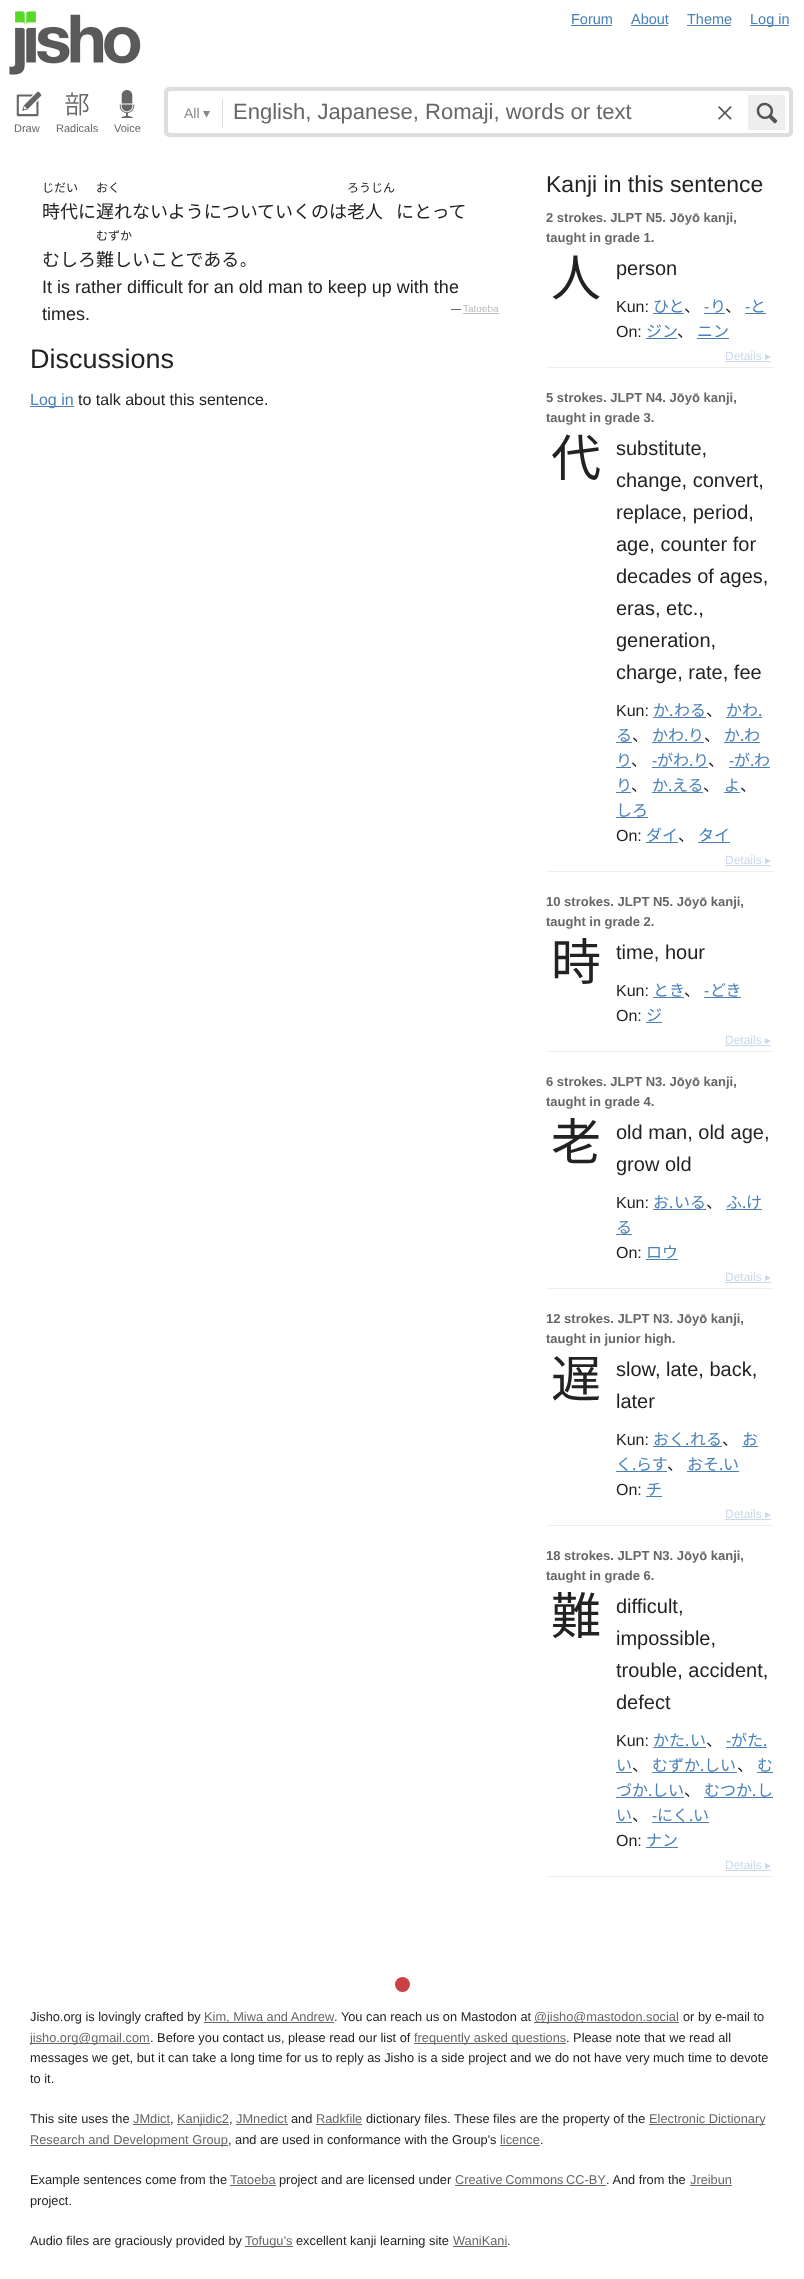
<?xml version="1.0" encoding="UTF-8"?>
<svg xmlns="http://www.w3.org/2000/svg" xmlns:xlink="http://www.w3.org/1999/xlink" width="804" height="2279">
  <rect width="100%" height="100%" fill="#ffffff" />
  <image x="9" y="11" width="132" height="64" xlink:href="image1.png" />
  <rect x="571" y="25" width="41" height="1" fill="#4a80b5" />
  <rect x="631" y="25" width="37" height="1" fill="#4a80b5" />
  <rect x="687" y="25" width="44" height="1" fill="#4a80b5" />
  <rect x="750" y="25" width="39" height="1" fill="#4a80b5" />
  <rect x="164" y="87" width="629" height="50" rx="5" fill="#dddddd" />
  <rect x="168" y="91" width="621" height="42" rx="2" fill="#ffffff" />
  <rect x="222" y="99" width="1" height="29" fill="#dddddd" />
  <image x="718" y="106" width="14" height="14" xlink:href="image2.png" />
  <path d="M 748 95 h 36 c 0.5 0 1 0.5 1 1 v 33 c 0 0.5 -0.5 1 -1 1 h -36 z" fill="#eeeeee" />
  <image x="756" y="102" width="22" height="22" xlink:href="image3.png" />
  <image x="16" y="91" width="26" height="26" xlink:href="image4.png" />
  <image x="65" y="92" width="24" height="24" xlink:href="image5.png" />
  <image x="119" y="90" width="16" height="28" xlink:href="image6.png" />
  <rect x="463" y="313" width="36" height="1" fill="#bbbbbb" />
  <rect x="30" y="406" width="44" height="1" fill="#4a80b5" />
  <rect x="546" y="367" width="228" height="1" fill="#eeeeee" />
  <rect x="653" y="313" width="31" height="1" fill="#4a80b5" />
  <rect x="704" y="313" width="21" height="1" fill="#4a80b5" />
  <rect x="745" y="313" width="21" height="1" fill="#4a80b5" />
  <rect x="646" y="338" width="31" height="1" fill="#4a80b5" />
  <rect x="697" y="338" width="32" height="1" fill="#4a80b5" />
  <rect x="725" y="361" width="46" height="1" fill="#c9d9e9" />
  <rect x="546" y="871" width="228" height="1" fill="#eeeeee" />
  <rect x="653" y="717" width="53" height="1" fill="#4a80b5" />
  <rect x="726" y="717" width="36" height="1" fill="#4a80b5" />
  <rect x="616" y="742" width="16" height="1" fill="#4a80b5" />
  <rect x="652" y="742" width="52" height="1" fill="#4a80b5" />
  <rect x="724" y="742" width="36" height="1" fill="#4a80b5" />
  <rect x="616" y="767" width="15" height="1" fill="#4a80b5" />
  <rect x="652" y="767" width="56" height="1" fill="#4a80b5" />
  <rect x="729" y="767" width="41" height="1" fill="#4a80b5" />
  <rect x="616" y="792" width="15" height="1" fill="#4a80b5" />
  <rect x="652" y="792" width="51" height="1" fill="#4a80b5" />
  <rect x="724" y="792" width="16" height="1" fill="#4a80b5" />
  <rect x="616" y="817" width="32" height="1" fill="#4a80b5" />
  <rect x="646" y="842" width="32" height="1" fill="#4a80b5" />
  <rect x="698" y="842" width="32" height="1" fill="#4a80b5" />
  <rect x="725" y="865" width="46" height="1" fill="#c9d9e9" />
  <rect x="546" y="1051" width="228" height="1" fill="#eeeeee" />
  <rect x="653" y="997" width="31" height="1" fill="#4a80b5" />
  <rect x="704" y="997" width="37" height="1" fill="#4a80b5" />
  <rect x="646" y="1022" width="16" height="1" fill="#4a80b5" />
  <rect x="725" y="1045" width="46" height="1" fill="#c9d9e9" />
  <rect x="546" y="1288" width="228" height="1" fill="#eeeeee" />
  <rect x="653" y="1209" width="53" height="1" fill="#4a80b5" />
  <rect x="726" y="1209" width="36" height="1" fill="#4a80b5" />
  <rect x="616" y="1234" width="16" height="1" fill="#4a80b5" />
  <rect x="646" y="1259" width="32" height="1" fill="#4a80b5" />
  <rect x="725" y="1282" width="46" height="1" fill="#c9d9e9" />
  <rect x="546" y="1525" width="228" height="1" fill="#eeeeee" />
  <rect x="653" y="1446" width="69" height="1" fill="#4a80b5" />
  <rect x="742" y="1446" width="16" height="1" fill="#4a80b5" />
  <rect x="616" y="1471" width="51" height="1" fill="#4a80b5" />
  <rect x="687" y="1471" width="52" height="1" fill="#4a80b5" />
  <rect x="646" y="1496" width="16" height="1" fill="#4a80b5" />
  <rect x="725" y="1519" width="46" height="1" fill="#c9d9e9" />
  <rect x="546" y="1876" width="228" height="1" fill="#eeeeee" />
  <rect x="653" y="1747" width="53" height="1" fill="#4a80b5" />
  <rect x="726" y="1747" width="41" height="1" fill="#4a80b5" />
  <rect x="616" y="1772" width="16" height="1" fill="#4a80b5" />
  <rect x="652" y="1772" width="85" height="1" fill="#4a80b5" />
  <rect x="757" y="1772" width="16" height="1" fill="#4a80b5" />
  <rect x="616" y="1797" width="68" height="1" fill="#4a80b5" />
  <rect x="704" y="1797" width="69" height="1" fill="#4a80b5" />
  <rect x="616" y="1822" width="16" height="1" fill="#4a80b5" />
  <rect x="652" y="1822" width="57" height="1" fill="#4a80b5" />
  <rect x="646" y="1847" width="32" height="1" fill="#4a80b5" />
  <rect x="725" y="1870" width="46" height="1" fill="#c9d9e9" />
  <circle cx="402.5" cy="1984.5" r="7.5" fill="#cb4042" />
  <rect x="204" y="2022" width="130" height="1" fill="#666666" />
  <rect x="534" y="2022" width="145" height="1" fill="#666666" />
  <rect x="30" y="2043" width="120" height="1" fill="#666666" />
  <rect x="414" y="2043" width="152" height="1" fill="#666666" />
  <rect x="133" y="2124" width="37" height="1" fill="#666666" />
  <rect x="177" y="2124" width="52" height="1" fill="#666666" />
  <rect x="236" y="2124" width="52" height="1" fill="#666666" />
  <rect x="316" y="2124" width="46" height="1" fill="#666666" />
  <rect x="649" y="2124" width="116" height="1" fill="#666666" />
  <rect x="30" y="2145" width="198" height="1" fill="#666666" />
  <rect x="500" y="2145" width="40" height="1" fill="#666666" />
  <rect x="230" y="2185" width="46" height="1" fill="#666666" />
  <rect x="455" y="2185" width="151" height="1" fill="#666666" />
  <rect x="690" y="2185" width="42" height="1" fill="#666666" />
  <rect x="245" y="2246" width="48" height="1" fill="#666666" />
  <rect x="453" y="2246" width="54" height="1" fill="#666666" />
  <text x="571" y="24" style="font-family: Liberation Sans; font-size: 14.5px; fill: #4a80b5">Forum</text>
  <text x="631" y="24" style="font-family: Liberation Sans; font-size: 14.5px; fill: #4a80b5">About</text>
  <text x="687" y="24" style="font-family: Liberation Sans; font-size: 14.5px; fill: #4a80b5">Theme</text>
  <text x="750" y="24" style="font-family: Liberation Sans; font-size: 14.5px; fill: #4a80b5">Log in</text>
  <text x="184" y="118" style="font-family: Liberation Sans; font-size: 14px; fill: #888888">All</text>
  <text x="203" y="118" style="font-family: DejaVu Sans; font-size: 14px; fill: #888888">▾</text>
  <text x="233" y="119" style="font-family: Liberation Sans; font-size: 22px; fill: #666666">English, Japanese, Romaji, words or text</text>
  <text x="14" y="132" style="font-family: Liberation Sans; font-size: 11px; fill: #666666">Draw</text>
  <text x="56" y="132" style="font-family: Liberation Sans; font-size: 11px; fill: #666666">Radicals</text>
  <text x="114" y="132" style="font-family: Liberation Sans; font-size: 11px; fill: #666666">Voice</text>
  <text x="42" y="192" style="font-family: Noto Sans CJK JP; font-size: 12px; fill: #222222">じだい</text>
  <text x="42" y="218" style="font-family: Noto Sans CJK JP; font-size: 18px; fill: #222222">時代に遅れないようについていくのは老人</text>
  <text x="96" y="192" style="font-family: Noto Sans CJK JP; font-size: 12px; fill: #222222">おく</text>
  <text x="347" y="192" style="font-family: Noto Sans CJK JP; font-size: 12px; fill: #222222">ろうじん</text>
  <text x="396" y="218" style="font-family: Noto Sans CJK JP; font-size: 18px; fill: #222222">にとって</text>
  <text x="96" y="240" style="font-family: Noto Sans CJK JP; font-size: 12px; fill: #222222">むずか</text>
  <text x="42" y="266" style="font-family: Noto Sans CJK JP; font-size: 18px; fill: #222222">むしろ難しいことである</text>
  <text x="240" y="266" style="font-family: Noto Sans CJK JP; font-size: 16px; fill: #222222">。</text>
  <text x="42" y="293" style="font-family: Liberation Sans; font-size: 18px; fill: #222222">It is rather difficult for an old man to keep up with the</text>
  <text x="42" y="320" style="font-family: Liberation Sans; font-size: 18px; fill: #222222">times.</text>
  <text x="451" y="312" style="font-family: Liberation Sans; font-size: 10px; fill: #222222">—</text>
  <text x="463" y="312" style="font-family: Liberation Sans; font-size: 10px; fill: #bbbbbb">Tatoeba</text>
  <text x="30" y="368" style="font-family: Liberation Sans; font-size: 27px; fill: #222222">Discussions</text>
  <text x="30" y="405" style="font-family: Liberation Sans; font-size: 16px; fill: #4a80b5">Log in</text>
  <text x="78" y="405" style="font-family: Liberation Sans; font-size: 16px; fill: #222222">to talk about this sentence.</text>
  <text x="546" y="192" style="font-family: Liberation Sans; font-size: 23px; fill: #222222">Kanji in this sentence</text>
  <text x="546" y="222" style="font-family: Liberation Sans; font-size: 13px; font-weight: bold; fill: #666666">2 strokes. JLPT N5. Jōyō kanji,</text>
  <text x="546" y="242" style="font-family: Liberation Sans; font-size: 13px; font-weight: bold; fill: #666666">taught in grade 1.</text>
  <text x="551" y="296" style="font-family: Noto Sans CJK JP; font-size: 50px; fill: #222222">人</text>
  <text x="616" y="275" style="font-family: Liberation Sans; font-size: 20px; fill: #222222">person</text>
  <text x="616" y="312" style="font-family: Liberation Sans; font-size: 16px; fill: #222222">Kun:</text>
  <text x="653" y="312" style="font-family: Noto Sans CJK JP; font-size: 16px; fill: #4a80b5">ひと</text>
  <text x="684" y="312" style="font-family: Noto Sans CJK JP; font-size: 16px; fill: #222222">、</text>
  <text x="704" y="312" style="font-family: Noto Sans; font-size: 16px; fill: #4a80b5">-</text>
  <text x="710" y="312" style="font-family: Noto Sans CJK JP; font-size: 16px; fill: #4a80b5">り</text>
  <text x="725" y="312" style="font-family: Noto Sans CJK JP; font-size: 16px; fill: #222222">、</text>
  <text x="745" y="312" style="font-family: Noto Sans; font-size: 16px; fill: #4a80b5">-</text>
  <text x="750" y="312" style="font-family: Noto Sans CJK JP; font-size: 16px; fill: #4a80b5">と</text>
  <text x="616" y="337" style="font-family: Liberation Sans; font-size: 16px; fill: #222222">On:</text>
  <text x="646" y="337" style="font-family: Noto Sans CJK JP; font-size: 16px; fill: #4a80b5">ジン</text>
  <text x="677" y="337" style="font-family: Noto Sans CJK JP; font-size: 16px; fill: #222222">、</text>
  <text x="697" y="337" style="font-family: Noto Sans CJK JP; font-size: 16px; fill: #4a80b5">ニン</text>
  <text x="725" y="360" style="font-family: Liberation Sans; font-size: 12px; fill: #c9d9e9">Details</text>
  <text x="765" y="360" style="font-family: DejaVu Sans; font-size: 12px; fill: #c9d9e9">▸</text>
  <text x="546" y="402" style="font-family: Liberation Sans; font-size: 13px; font-weight: bold; fill: #666666">5 strokes. JLPT N4. Jōyō kanji,</text>
  <text x="546" y="422" style="font-family: Liberation Sans; font-size: 13px; font-weight: bold; fill: #666666">taught in grade 3.</text>
  <text x="551" y="476" style="font-family: Noto Sans CJK JP; font-size: 50px; fill: #222222">代</text>
  <text x="616" y="455" style="font-family: Liberation Sans; font-size: 20px; fill: #222222">substitute,</text>
  <text x="616" y="487" style="font-family: Liberation Sans; font-size: 20px; fill: #222222">change, convert,</text>
  <text x="616" y="519" style="font-family: Liberation Sans; font-size: 20px; fill: #222222">replace, period,</text>
  <text x="616" y="551" style="font-family: Liberation Sans; font-size: 20px; fill: #222222">age, counter for</text>
  <text x="616" y="583" style="font-family: Liberation Sans; font-size: 20px; fill: #222222">decades of ages,</text>
  <text x="616" y="615" style="font-family: Liberation Sans; font-size: 20px; fill: #222222">eras, etc.,</text>
  <text x="616" y="647" style="font-family: Liberation Sans; font-size: 20px; fill: #222222">generation,</text>
  <text x="616" y="679" style="font-family: Liberation Sans; font-size: 20px; fill: #222222">charge, rate, fee</text>
  <text x="616" y="716" style="font-family: Liberation Sans; font-size: 16px; fill: #222222">Kun:</text>
  <text x="653" y="716" style="font-family: Noto Sans CJK JP; font-size: 16px; fill: #4a80b5">か</text>
  <text x="669" y="716" style="font-family: Noto Sans; font-size: 16px; fill: #4a80b5">.</text>
  <text x="674" y="716" style="font-family: Noto Sans CJK JP; font-size: 16px; fill: #4a80b5">わる</text>
  <text x="706" y="716" style="font-family: Noto Sans CJK JP; font-size: 16px; fill: #222222">、</text>
  <text x="726" y="716" style="font-family: Noto Sans CJK JP; font-size: 16px; fill: #4a80b5">かわ</text>
  <text x="758" y="716" style="font-family: Noto Sans; font-size: 16px; fill: #4a80b5">.</text>
  <text x="616" y="741" style="font-family: Noto Sans CJK JP; font-size: 16px; fill: #4a80b5">る</text>
  <text x="632" y="741" style="font-family: Noto Sans CJK JP; font-size: 16px; fill: #222222">、</text>
  <text x="652" y="741" style="font-family: Noto Sans CJK JP; font-size: 16px; fill: #4a80b5">かわ</text>
  <text x="684" y="741" style="font-family: Noto Sans; font-size: 16px; fill: #4a80b5">.</text>
  <text x="688" y="741" style="font-family: Noto Sans CJK JP; font-size: 16px; fill: #4a80b5">り</text>
  <text x="704" y="741" style="font-family: Noto Sans CJK JP; font-size: 16px; fill: #222222">、</text>
  <text x="724" y="741" style="font-family: Noto Sans CJK JP; font-size: 16px; fill: #4a80b5">か</text>
  <text x="740" y="741" style="font-family: Noto Sans; font-size: 16px; fill: #4a80b5">.</text>
  <text x="744" y="741" style="font-family: Noto Sans CJK JP; font-size: 16px; fill: #4a80b5">わ</text>
  <text x="616" y="766" style="font-family: Noto Sans CJK JP; font-size: 16px; fill: #4a80b5">り</text>
  <text x="631" y="766" style="font-family: Noto Sans CJK JP; font-size: 16px; fill: #222222">、</text>
  <text x="652" y="766" style="font-family: Noto Sans; font-size: 16px; fill: #4a80b5">-</text>
  <text x="657" y="766" style="font-family: Noto Sans CJK JP; font-size: 16px; fill: #4a80b5">がわ</text>
  <text x="689" y="766" style="font-family: Noto Sans; font-size: 16px; fill: #4a80b5">.</text>
  <text x="693" y="766" style="font-family: Noto Sans CJK JP; font-size: 16px; fill: #4a80b5">り</text>
  <text x="708" y="766" style="font-family: Noto Sans CJK JP; font-size: 16px; fill: #222222">、</text>
  <text x="729" y="766" style="font-family: Noto Sans; font-size: 16px; fill: #4a80b5">-</text>
  <text x="734" y="766" style="font-family: Noto Sans CJK JP; font-size: 16px; fill: #4a80b5">が</text>
  <text x="750" y="766" style="font-family: Noto Sans; font-size: 16px; fill: #4a80b5">.</text>
  <text x="754" y="766" style="font-family: Noto Sans CJK JP; font-size: 16px; fill: #4a80b5">わ</text>
  <text x="616" y="791" style="font-family: Noto Sans CJK JP; font-size: 16px; fill: #4a80b5">り</text>
  <text x="631" y="791" style="font-family: Noto Sans CJK JP; font-size: 16px; fill: #222222">、</text>
  <text x="652" y="791" style="font-family: Noto Sans CJK JP; font-size: 16px; fill: #4a80b5">か</text>
  <text x="668" y="791" style="font-family: Noto Sans; font-size: 16px; fill: #4a80b5">.</text>
  <text x="672" y="791" style="font-family: Noto Sans CJK JP; font-size: 16px; fill: #4a80b5">える</text>
  <text x="703" y="791" style="font-family: Noto Sans CJK JP; font-size: 16px; fill: #222222">、</text>
  <text x="724" y="791" style="font-family: Noto Sans CJK JP; font-size: 16px; fill: #4a80b5">よ</text>
  <text x="740" y="791" style="font-family: Noto Sans CJK JP; font-size: 16px; fill: #222222">、</text>
  <text x="616" y="816" style="font-family: Noto Sans CJK JP; font-size: 16px; fill: #4a80b5">しろ</text>
  <text x="616" y="841" style="font-family: Liberation Sans; font-size: 16px; fill: #222222">On:</text>
  <text x="646" y="841" style="font-family: Noto Sans CJK JP; font-size: 16px; fill: #4a80b5">ダイ</text>
  <text x="678" y="841" style="font-family: Noto Sans CJK JP; font-size: 16px; fill: #222222">、</text>
  <text x="698" y="841" style="font-family: Noto Sans CJK JP; font-size: 16px; fill: #4a80b5">タイ</text>
  <text x="725" y="864" style="font-family: Liberation Sans; font-size: 12px; fill: #c9d9e9">Details</text>
  <text x="765" y="864" style="font-family: DejaVu Sans; font-size: 12px; fill: #c9d9e9">▸</text>
  <text x="546" y="906" style="font-family: Liberation Sans; font-size: 13px; font-weight: bold; fill: #666666">10 strokes. JLPT N5. Jōyō kanji,</text>
  <text x="546" y="926" style="font-family: Liberation Sans; font-size: 13px; font-weight: bold; fill: #666666">taught in grade 2.</text>
  <text x="551" y="980" style="font-family: Noto Sans CJK JP; font-size: 50px; fill: #222222">時</text>
  <text x="616" y="959" style="font-family: Liberation Sans; font-size: 20px; fill: #222222">time, hour</text>
  <text x="616" y="996" style="font-family: Liberation Sans; font-size: 16px; fill: #222222">Kun:</text>
  <text x="653" y="996" style="font-family: Noto Sans CJK JP; font-size: 16px; fill: #4a80b5">とき</text>
  <text x="684" y="996" style="font-family: Noto Sans CJK JP; font-size: 16px; fill: #222222">、</text>
  <text x="704" y="996" style="font-family: Noto Sans; font-size: 16px; fill: #4a80b5">-</text>
  <text x="710" y="996" style="font-family: Noto Sans CJK JP; font-size: 16px; fill: #4a80b5">どき</text>
  <text x="616" y="1021" style="font-family: Liberation Sans; font-size: 16px; fill: #222222">On:</text>
  <text x="646" y="1021" style="font-family: Noto Sans CJK JP; font-size: 16px; fill: #4a80b5">ジ</text>
  <text x="725" y="1044" style="font-family: Liberation Sans; font-size: 12px; fill: #c9d9e9">Details</text>
  <text x="765" y="1044" style="font-family: DejaVu Sans; font-size: 12px; fill: #c9d9e9">▸</text>
  <text x="546" y="1086" style="font-family: Liberation Sans; font-size: 13px; font-weight: bold; fill: #666666">6 strokes. JLPT N3. Jōyō kanji,</text>
  <text x="546" y="1106" style="font-family: Liberation Sans; font-size: 13px; font-weight: bold; fill: #666666">taught in grade 4.</text>
  <text x="551" y="1160" style="font-family: Noto Sans CJK JP; font-size: 50px; fill: #222222">老</text>
  <text x="616" y="1139" style="font-family: Liberation Sans; font-size: 20px; fill: #222222">old man, old age,</text>
  <text x="616" y="1171" style="font-family: Liberation Sans; font-size: 20px; fill: #222222">grow old</text>
  <text x="616" y="1208" style="font-family: Liberation Sans; font-size: 16px; fill: #222222">Kun:</text>
  <text x="653" y="1208" style="font-family: Noto Sans CJK JP; font-size: 16px; fill: #4a80b5">お</text>
  <text x="669" y="1208" style="font-family: Noto Sans; font-size: 16px; fill: #4a80b5">.</text>
  <text x="674" y="1208" style="font-family: Noto Sans CJK JP; font-size: 16px; fill: #4a80b5">いる</text>
  <text x="706" y="1208" style="font-family: Noto Sans CJK JP; font-size: 16px; fill: #222222">、</text>
  <text x="726" y="1208" style="font-family: Noto Sans CJK JP; font-size: 16px; fill: #4a80b5">ふ</text>
  <text x="742" y="1208" style="font-family: Noto Sans; font-size: 16px; fill: #4a80b5">.</text>
  <text x="746" y="1208" style="font-family: Noto Sans CJK JP; font-size: 16px; fill: #4a80b5">け</text>
  <text x="616" y="1233" style="font-family: Noto Sans CJK JP; font-size: 16px; fill: #4a80b5">る</text>
  <text x="616" y="1258" style="font-family: Liberation Sans; font-size: 16px; fill: #222222">On:</text>
  <text x="646" y="1258" style="font-family: Noto Sans CJK JP; font-size: 16px; fill: #4a80b5">ロウ</text>
  <text x="725" y="1281" style="font-family: Liberation Sans; font-size: 12px; fill: #c9d9e9">Details</text>
  <text x="765" y="1281" style="font-family: DejaVu Sans; font-size: 12px; fill: #c9d9e9">▸</text>
  <text x="546" y="1323" style="font-family: Liberation Sans; font-size: 13px; font-weight: bold; fill: #666666">12 strokes. JLPT N3. Jōyō kanji,</text>
  <text x="546" y="1343" style="font-family: Liberation Sans; font-size: 13px; font-weight: bold; fill: #666666">taught in junior high.</text>
  <text x="551" y="1397" style="font-family: Noto Sans CJK JP; font-size: 50px; fill: #222222">遅</text>
  <text x="616" y="1376" style="font-family: Liberation Sans; font-size: 20px; fill: #222222">slow, late, back,</text>
  <text x="616" y="1408" style="font-family: Liberation Sans; font-size: 20px; fill: #222222">later</text>
  <text x="616" y="1445" style="font-family: Liberation Sans; font-size: 16px; fill: #222222">Kun:</text>
  <text x="653" y="1445" style="font-family: Noto Sans CJK JP; font-size: 16px; fill: #4a80b5">おく</text>
  <text x="685" y="1445" style="font-family: Noto Sans; font-size: 16px; fill: #4a80b5">.</text>
  <text x="690" y="1445" style="font-family: Noto Sans CJK JP; font-size: 16px; fill: #4a80b5">れる</text>
  <text x="722" y="1445" style="font-family: Noto Sans CJK JP; font-size: 16px; fill: #222222">、</text>
  <text x="742" y="1445" style="font-family: Noto Sans CJK JP; font-size: 16px; fill: #4a80b5">お</text>
  <text x="616" y="1470" style="font-family: Noto Sans CJK JP; font-size: 16px; fill: #4a80b5">く</text>
  <text x="632" y="1470" style="font-family: Noto Sans; font-size: 16px; fill: #4a80b5">.</text>
  <text x="636" y="1470" style="font-family: Noto Sans CJK JP; font-size: 16px; fill: #4a80b5">らす</text>
  <text x="667" y="1470" style="font-family: Noto Sans CJK JP; font-size: 16px; fill: #222222">、</text>
  <text x="687" y="1470" style="font-family: Noto Sans CJK JP; font-size: 16px; fill: #4a80b5">おそ</text>
  <text x="719" y="1470" style="font-family: Noto Sans; font-size: 16px; fill: #4a80b5">.</text>
  <text x="723" y="1470" style="font-family: Noto Sans CJK JP; font-size: 16px; fill: #4a80b5">い</text>
  <text x="616" y="1495" style="font-family: Liberation Sans; font-size: 16px; fill: #222222">On:</text>
  <text x="646" y="1495" style="font-family: Noto Sans CJK JP; font-size: 16px; fill: #4a80b5">チ</text>
  <text x="725" y="1518" style="font-family: Liberation Sans; font-size: 12px; fill: #c9d9e9">Details</text>
  <text x="765" y="1518" style="font-family: DejaVu Sans; font-size: 12px; fill: #c9d9e9">▸</text>
  <text x="546" y="1560" style="font-family: Liberation Sans; font-size: 13px; font-weight: bold; fill: #666666">18 strokes. JLPT N3. Jōyō kanji,</text>
  <text x="546" y="1580" style="font-family: Liberation Sans; font-size: 13px; font-weight: bold; fill: #666666">taught in grade 6.</text>
  <text x="551" y="1634" style="font-family: Noto Sans CJK JP; font-size: 50px; fill: #222222">難</text>
  <text x="616" y="1613" style="font-family: Liberation Sans; font-size: 20px; fill: #222222">difficult,</text>
  <text x="616" y="1645" style="font-family: Liberation Sans; font-size: 20px; fill: #222222">impossible,</text>
  <text x="616" y="1677" style="font-family: Liberation Sans; font-size: 20px; fill: #222222">trouble, accident,</text>
  <text x="616" y="1709" style="font-family: Liberation Sans; font-size: 20px; fill: #222222">defect</text>
  <text x="616" y="1746" style="font-family: Liberation Sans; font-size: 16px; fill: #222222">Kun:</text>
  <text x="653" y="1746" style="font-family: Noto Sans CJK JP; font-size: 16px; fill: #4a80b5">かた</text>
  <text x="685" y="1746" style="font-family: Noto Sans; font-size: 16px; fill: #4a80b5">.</text>
  <text x="690" y="1746" style="font-family: Noto Sans CJK JP; font-size: 16px; fill: #4a80b5">い</text>
  <text x="706" y="1746" style="font-family: Noto Sans CJK JP; font-size: 16px; fill: #222222">、</text>
  <text x="726" y="1746" style="font-family: Noto Sans; font-size: 16px; fill: #4a80b5">-</text>
  <text x="731" y="1746" style="font-family: Noto Sans CJK JP; font-size: 16px; fill: #4a80b5">がた</text>
  <text x="763" y="1746" style="font-family: Noto Sans; font-size: 16px; fill: #4a80b5">.</text>
  <text x="616" y="1771" style="font-family: Noto Sans CJK JP; font-size: 16px; fill: #4a80b5">い</text>
  <text x="632" y="1771" style="font-family: Noto Sans CJK JP; font-size: 16px; fill: #222222">、</text>
  <text x="652" y="1771" style="font-family: Noto Sans CJK JP; font-size: 16px; fill: #4a80b5">むずか</text>
  <text x="700" y="1771" style="font-family: Noto Sans; font-size: 16px; fill: #4a80b5">.</text>
  <text x="704" y="1771" style="font-family: Noto Sans CJK JP; font-size: 16px; fill: #4a80b5">しい</text>
  <text x="737" y="1771" style="font-family: Noto Sans CJK JP; font-size: 16px; fill: #222222">、</text>
  <text x="757" y="1771" style="font-family: Noto Sans CJK JP; font-size: 16px; fill: #4a80b5">む</text>
  <text x="616" y="1796" style="font-family: Noto Sans CJK JP; font-size: 16px; fill: #4a80b5">づか</text>
  <text x="648" y="1796" style="font-family: Noto Sans; font-size: 16px; fill: #4a80b5">.</text>
  <text x="652" y="1796" style="font-family: Noto Sans CJK JP; font-size: 16px; fill: #4a80b5">しい</text>
  <text x="684" y="1796" style="font-family: Noto Sans CJK JP; font-size: 16px; fill: #222222">、</text>
  <text x="704" y="1796" style="font-family: Noto Sans CJK JP; font-size: 16px; fill: #4a80b5">むつか</text>
  <text x="752" y="1796" style="font-family: Noto Sans; font-size: 16px; fill: #4a80b5">.</text>
  <text x="757" y="1796" style="font-family: Noto Sans CJK JP; font-size: 16px; fill: #4a80b5">し</text>
  <text x="616" y="1821" style="font-family: Noto Sans CJK JP; font-size: 16px; fill: #4a80b5">い</text>
  <text x="632" y="1821" style="font-family: Noto Sans CJK JP; font-size: 16px; fill: #222222">、</text>
  <text x="652" y="1821" style="font-family: Noto Sans; font-size: 16px; fill: #4a80b5">-</text>
  <text x="657" y="1821" style="font-family: Noto Sans CJK JP; font-size: 16px; fill: #4a80b5">にく</text>
  <text x="689" y="1821" style="font-family: Noto Sans; font-size: 16px; fill: #4a80b5">.</text>
  <text x="693" y="1821" style="font-family: Noto Sans CJK JP; font-size: 16px; fill: #4a80b5">い</text>
  <text x="616" y="1846" style="font-family: Liberation Sans; font-size: 16px; fill: #222222">On:</text>
  <text x="646" y="1846" style="font-family: Noto Sans CJK JP; font-size: 16px; fill: #4a80b5">ナン</text>
  <text x="725" y="1869" style="font-family: Liberation Sans; font-size: 12px; fill: #c9d9e9">Details</text>
  <text x="765" y="1869" style="font-family: DejaVu Sans; font-size: 12px; fill: #c9d9e9">▸</text>
  <text x="30" y="2021" style="font-family: Liberation Sans; font-size: 12.8px; fill: #222222">Jisho.org is lovingly crafted by</text>
  <text x="204" y="2021" style="font-family: Liberation Sans; font-size: 12.8px; fill: #666666">Kim, Miwa and Andrew</text>
  <text x="334" y="2021" style="font-family: Liberation Sans; font-size: 12.8px; fill: #222222">. You can reach us on Mastodon at</text>
  <text x="534" y="2021" style="font-family: Liberation Sans; font-size: 12.8px; fill: #666666">@jisho@mastodon.social</text>
  <text x="683" y="2021" style="font-family: Liberation Sans; font-size: 12.8px; fill: #222222">or by e-mail to</text>
  <text x="30" y="2042" style="font-family: Liberation Sans; font-size: 12.8px; fill: #666666">jisho.org@gmail.com</text>
  <text x="150" y="2042" style="font-family: Liberation Sans; font-size: 12.8px; fill: #222222">. Before you contact us, please read our list of</text>
  <text x="414" y="2042" style="font-family: Liberation Sans; font-size: 12.8px; fill: #666666">frequently asked questions</text>
  <text x="566" y="2042" style="font-family: Liberation Sans; font-size: 12.8px; fill: #222222">. Please note that we read all</text>
  <text x="30" y="2062" style="font-family: Liberation Sans; font-size: 12.8px; fill: #222222">messages we get, but it can take a long time for us to reply as Jisho is a side project and we do not have very much time to devote</text>
  <text x="30" y="2083" style="font-family: Liberation Sans; font-size: 12.8px; fill: #222222">to it.</text>
  <text x="30" y="2123" style="font-family: Liberation Sans; font-size: 12.8px; fill: #222222">This site uses the</text>
  <text x="133" y="2123" style="font-family: Liberation Sans; font-size: 12.8px; fill: #666666">JMdict</text>
  <text x="170" y="2123" style="font-family: Liberation Sans; font-size: 12.8px; fill: #222222">,</text>
  <text x="177" y="2123" style="font-family: Liberation Sans; font-size: 12.8px; fill: #666666">Kanjidic2</text>
  <text x="229" y="2123" style="font-family: Liberation Sans; font-size: 12.8px; fill: #222222">,</text>
  <text x="236" y="2123" style="font-family: Liberation Sans; font-size: 12.8px; fill: #666666">JMnedict</text>
  <text x="291" y="2123" style="font-family: Liberation Sans; font-size: 12.8px; fill: #222222">and</text>
  <text x="316" y="2123" style="font-family: Liberation Sans; font-size: 12.8px; fill: #666666">Radkfile</text>
  <text x="366" y="2123" style="font-family: Liberation Sans; font-size: 12.8px; fill: #222222">dictionary files. These files are the property of the</text>
  <text x="649" y="2123" style="font-family: Liberation Sans; font-size: 12.8px; fill: #666666">Electronic Dictionary</text>
  <text x="30" y="2144" style="font-family: Liberation Sans; font-size: 12.8px; fill: #666666">Research and Development Group</text>
  <text x="228" y="2144" style="font-family: Liberation Sans; font-size: 12.8px; fill: #222222">, and are used in conformance with the Group's</text>
  <text x="500" y="2144" style="font-family: Liberation Sans; font-size: 12.8px; fill: #666666">licence</text>
  <text x="540" y="2144" style="font-family: Liberation Sans; font-size: 12.8px; fill: #222222">.</text>
  <text x="30" y="2184" style="font-family: Liberation Sans; font-size: 12.8px; fill: #222222">Example sentences come from the</text>
  <text x="230" y="2184" style="font-family: Liberation Sans; font-size: 12.8px; fill: #666666">Tatoeba</text>
  <text x="279" y="2184" style="font-family: Liberation Sans; font-size: 12.8px; fill: #222222">project and are licensed under</text>
  <text x="455" y="2184" word-spacing="-1" style="font-family: Liberation Sans; font-size: 12.8px; fill: #666666">Creative Commons CC-BY</text>
  <text x="606" y="2184" style="font-family: Liberation Sans; font-size: 12.8px; fill: #222222">. And from the</text>
  <text x="690" y="2184" style="font-family: Liberation Sans; font-size: 12.8px; fill: #666666">Jreibun</text>
  <text x="30" y="2205" style="font-family: Liberation Sans; font-size: 12.8px; fill: #222222">project.</text>
  <text x="30" y="2245" style="font-family: Liberation Sans; font-size: 12.8px; fill: #222222">Audio files are graciously provided by</text>
  <text x="245" y="2245" style="font-family: Liberation Sans; font-size: 12.8px; fill: #666666">Tofugu’s</text>
  <text x="296" y="2245" style="font-family: Liberation Sans; font-size: 12.8px; fill: #222222">excellent kanji learning site</text>
  <text x="453" y="2245" style="font-family: Liberation Sans; font-size: 12.8px; fill: #666666">WaniKani</text>
  <text x="507" y="2245" style="font-family: Liberation Sans; font-size: 12.8px; fill: #222222">.</text>
</svg>
